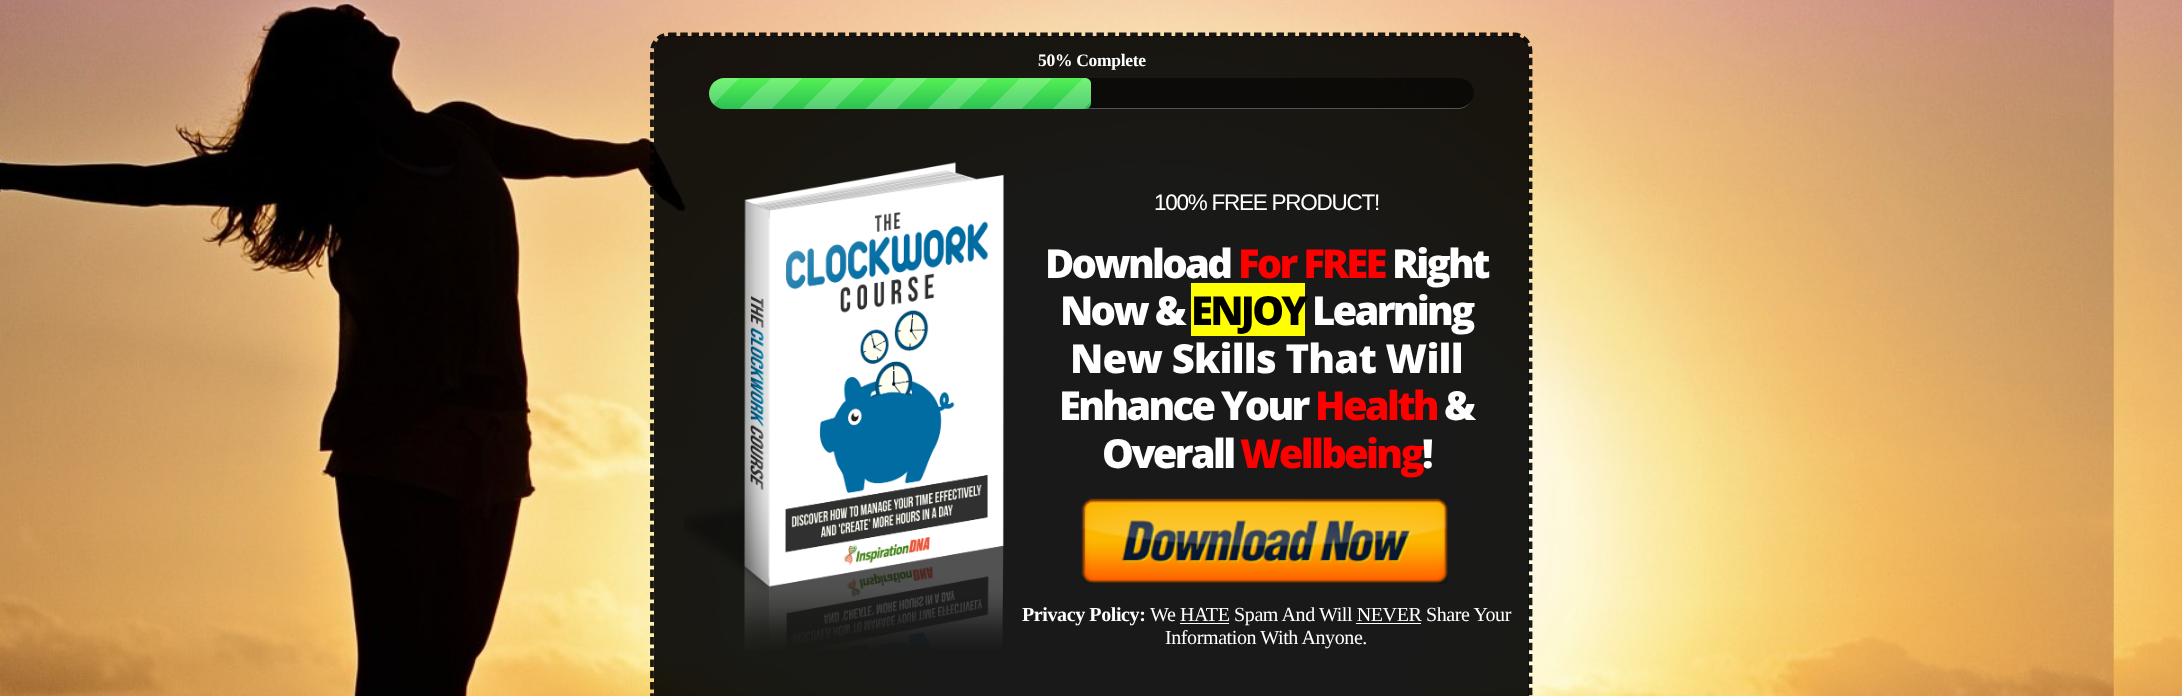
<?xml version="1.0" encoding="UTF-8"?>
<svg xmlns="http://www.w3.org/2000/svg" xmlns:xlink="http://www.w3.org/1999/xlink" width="2182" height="696">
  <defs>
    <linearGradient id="g1" gradientUnits="userSpaceOnUse" x1="709" y1="109" x2="709" y2="78"><stop offset="0" stop-color="#2bc253" /><stop offset="1" stop-color="#54f054" /></linearGradient>
    <linearGradient id="g2" gradientUnits="userSpaceOnUse" x1="709" y1="78" x2="771" y2="140"><stop offset="0.25" stop-color="#ffffff" stop-opacity="0.2" /><stop offset="0.25" stop-color="#ffffff" stop-opacity="0" /><stop offset="0.5" stop-color="#ffffff" stop-opacity="0" /><stop offset="0.5" stop-color="#ffffff" stop-opacity="0.2" /><stop offset="0.75" stop-color="#ffffff" stop-opacity="0.2" /><stop offset="0.75" stop-color="#ffffff" stop-opacity="0" /><stop offset="1" stop-color="#000000" stop-opacity="0" /></linearGradient>
    <linearGradient id="g3" gradientUnits="userSpaceOnUse" x1="771" y1="78" x2="834" y2="140"><stop offset="0.25" stop-color="#ffffff" stop-opacity="0.2" /><stop offset="0.25" stop-color="#ffffff" stop-opacity="0" /><stop offset="0.5" stop-color="#ffffff" stop-opacity="0" /><stop offset="0.5" stop-color="#ffffff" stop-opacity="0.2" /><stop offset="0.75" stop-color="#ffffff" stop-opacity="0.2" /><stop offset="0.75" stop-color="#ffffff" stop-opacity="0" /><stop offset="1" stop-color="#000000" stop-opacity="0" /></linearGradient>
    <linearGradient id="g4" gradientUnits="userSpaceOnUse" x1="834" y1="78" x2="896" y2="140"><stop offset="0.25" stop-color="#ffffff" stop-opacity="0.2" /><stop offset="0.25" stop-color="#ffffff" stop-opacity="0" /><stop offset="0.5" stop-color="#ffffff" stop-opacity="0" /><stop offset="0.5" stop-color="#ffffff" stop-opacity="0.2" /><stop offset="0.75" stop-color="#ffffff" stop-opacity="0.2" /><stop offset="0.75" stop-color="#ffffff" stop-opacity="0" /><stop offset="1" stop-color="#000000" stop-opacity="0" /></linearGradient>
    <linearGradient id="g5" gradientUnits="userSpaceOnUse" x1="896" y1="78" x2="959" y2="140"><stop offset="0.25" stop-color="#ffffff" stop-opacity="0.2" /><stop offset="0.25" stop-color="#ffffff" stop-opacity="0" /><stop offset="0.5" stop-color="#ffffff" stop-opacity="0" /><stop offset="0.5" stop-color="#ffffff" stop-opacity="0.2" /><stop offset="0.75" stop-color="#ffffff" stop-opacity="0.2" /><stop offset="0.75" stop-color="#ffffff" stop-opacity="0" /><stop offset="1" stop-color="#000000" stop-opacity="0" /></linearGradient>
    <linearGradient id="g6" gradientUnits="userSpaceOnUse" x1="959" y1="78" x2="1021" y2="140"><stop offset="0.25" stop-color="#ffffff" stop-opacity="0.2" /><stop offset="0.25" stop-color="#ffffff" stop-opacity="0" /><stop offset="0.5" stop-color="#ffffff" stop-opacity="0" /><stop offset="0.5" stop-color="#ffffff" stop-opacity="0.2" /><stop offset="0.75" stop-color="#ffffff" stop-opacity="0.2" /><stop offset="0.75" stop-color="#ffffff" stop-opacity="0" /><stop offset="1" stop-color="#000000" stop-opacity="0" /></linearGradient>
    <linearGradient id="g7" gradientUnits="userSpaceOnUse" x1="1021" y1="78" x2="1084" y2="140"><stop offset="0.25" stop-color="#ffffff" stop-opacity="0.2" /><stop offset="0.25" stop-color="#ffffff" stop-opacity="0" /><stop offset="0.5" stop-color="#ffffff" stop-opacity="0" /><stop offset="0.5" stop-color="#ffffff" stop-opacity="0.2" /><stop offset="0.75" stop-color="#ffffff" stop-opacity="0.2" /><stop offset="0.75" stop-color="#ffffff" stop-opacity="0" /><stop offset="1" stop-color="#000000" stop-opacity="0" /></linearGradient>
    <linearGradient id="g8" gradientUnits="userSpaceOnUse" x1="1084" y1="78" x2="1146" y2="140"><stop offset="0.25" stop-color="#ffffff" stop-opacity="0.2" /><stop offset="0.25" stop-color="#ffffff" stop-opacity="0" /><stop offset="0.5" stop-color="#ffffff" stop-opacity="0" /><stop offset="0.5" stop-color="#ffffff" stop-opacity="0.2" /><stop offset="0.75" stop-color="#ffffff" stop-opacity="0.2" /><stop offset="0.75" stop-color="#ffffff" stop-opacity="0" /><stop offset="1" stop-color="#000000" stop-opacity="0" /></linearGradient>
  </defs>
  <rect width="100%" height="100%" fill="#ffffff" />
  <image x="0" y="0" width="2182" height="696" xlink:href="image1.png" />
  <path d="M 669 34.5 h 845 c 9 0 16.5 7.5 16.5 16.5 v 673 c 0 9 -7.5 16.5 -16.5 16.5 h -845 c -9.5 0 -17 -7.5 -17 -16.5 v -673 c 0 -9 7.5 -16.5 17 -16.5 z" fill="none" stroke="#000000" stroke-opacity="0.9" stroke-width="3.8" stroke-dasharray="7.5 3.75" />
  <rect x="654" y="36" width="875" height="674" rx="14" fill="#000000" fill-opacity="0.9" />
  <rect x="709" y="78" width="765" height="31" rx="15.5" fill="#000000" fill-opacity="0.5" />
  <path d="M 709 93 c 0 8 7 16 15 16 h 734 c 9 0 16 -8 16 -16 c 0 8 -7 15 -16 15 h -734 c -8 0 -15 -7 -15 -15 z" fill="#ffffff" fill-opacity="0.3" />
  <path d="M 724.5 78 h 360.5 c 3.5 0 6 2.5 6 6 v 19 c 0 3.5 -2.5 6 -6 6 h -360.5 c -8.5 0 -15.5 -7 -15.5 -15.5 c 0 -8.5 7 -15.5 15.5 -15.5 z" fill="url(#g1)" />
  <path d="M 724.5 78 h 46.5 v 31 h -46.5 c -8.5 0 -15.5 -7 -15.5 -15.5 c 0 -8.5 7 -15.5 15.5 -15.5 z" fill="url(#g2)" />
  <rect x="771" y="78" width="63" height="31" fill="url(#g3)" />
  <rect x="834" y="78" width="62" height="31" fill="url(#g4)" />
  <rect x="896" y="78" width="63" height="31" fill="url(#g5)" />
  <rect x="959" y="78" width="62" height="31" fill="url(#g6)" />
  <rect x="1021" y="78" width="63" height="31" fill="url(#g7)" />
  <path d="M 1084 78 h 1 c 3.5 0 6 2.5 6 6 v 19 c 0 3.5 -2.5 6 -6 6 h -1 z" fill="url(#g8)" />
  <image x="684" y="162" width="320" height="488" xlink:href="image2.png" />
  <rect x="1191" y="283" width="114" height="53" fill="#ffff00" />
  <image x="1081" y="498" width="367" height="86" xlink:href="image3.png" />
  <rect x="1180" y="623" width="49" height="1" fill="#ffffff" />
  <rect x="1356" y="623" width="65" height="1" fill="#ffffff" />
  <text x="1038" y="66" style="font-family: Liberation Serif; font-size: 17.5px; font-weight: bold; letter-spacing: -0.3px; fill: #ffffff">50% Complete</text>
  <text x="1154" y="210" style="font-family: Liberation Sans; font-size: 22.5px; letter-spacing: -1.25px; fill: #ffffff">100% FREE PRODUCT!</text>
  <text x="1045" y="278" style="font-family: Open Sans; font-size: 40px; font-weight: 800; letter-spacing: -2.75px; fill: #ffffff">Download</text>
  <text x="1238" y="278" style="font-family: Open Sans; font-size: 40px; font-weight: 800; letter-spacing: -2.75px; fill: #ff0000">For FREE</text>
  <text x="1392" y="278" style="font-family: Open Sans; font-size: 40px; font-weight: 800; letter-spacing: -2.75px; fill: #ffffff">Right</text>
  <text x="1060" y="325" style="font-family: Open Sans; font-size: 40px; font-weight: 800; letter-spacing: -2.75px; fill: #ffffff">Now &amp;</text>
  <text x="1191" y="325" style="font-family: Open Sans; font-size: 40px; font-weight: 800; letter-spacing: -2.75px; fill: #000000">ENJOY</text>
  <text x="1312" y="325" style="font-family: Open Sans; font-size: 40px; font-weight: 800; letter-spacing: -2.75px; fill: #ffffff">Learning</text>
  <text x="1070" y="373" style="font-family: Open Sans; font-size: 40px; font-weight: 800; letter-spacing: -0.8px; fill: #ffffff">New Skills That Will</text>
  <text x="1059" y="420" style="font-family: Open Sans; font-size: 40px; font-weight: 800; letter-spacing: -2.75px; fill: #ffffff">Enhance Your</text>
  <text x="1315" y="420" style="font-family: Open Sans; font-size: 40px; font-weight: 800; letter-spacing: -2.75px; fill: #ff0000">Health</text>
  <text x="1444" y="420" style="font-family: Open Sans; font-size: 40px; font-weight: 800; letter-spacing: -2.75px; fill: #ffffff">&amp;</text>
  <text x="1102" y="468" style="font-family: Open Sans; font-size: 40px; font-weight: 800; letter-spacing: -2.75px; fill: #ffffff">Overall</text>
  <text x="1240" y="468" style="font-family: Open Sans; font-size: 40px; font-weight: 800; letter-spacing: -2.75px; fill: #ff0000">Wellbeing</text>
  <text x="1422" y="468" style="font-family: Open Sans; font-size: 40px; font-weight: 800; letter-spacing: -2.75px; fill: #ffffff">!</text>
  <text x="1022" y="621" style="font-family: Liberation Serif; font-size: 20px; font-weight: bold; letter-spacing: -0.4px; fill: #ffffff">Privacy Policy:</text>
  <text x="1150" y="621" style="font-family: Liberation Serif; font-size: 20px; letter-spacing: -0.4px; fill: #ffffff">We HATE Spam And Will NEVER Share Your</text>
  <text x="1165" y="644" style="font-family: Liberation Serif; font-size: 20px; letter-spacing: -0.4px; fill: #ffffff">Information With Anyone.</text>
</svg>
